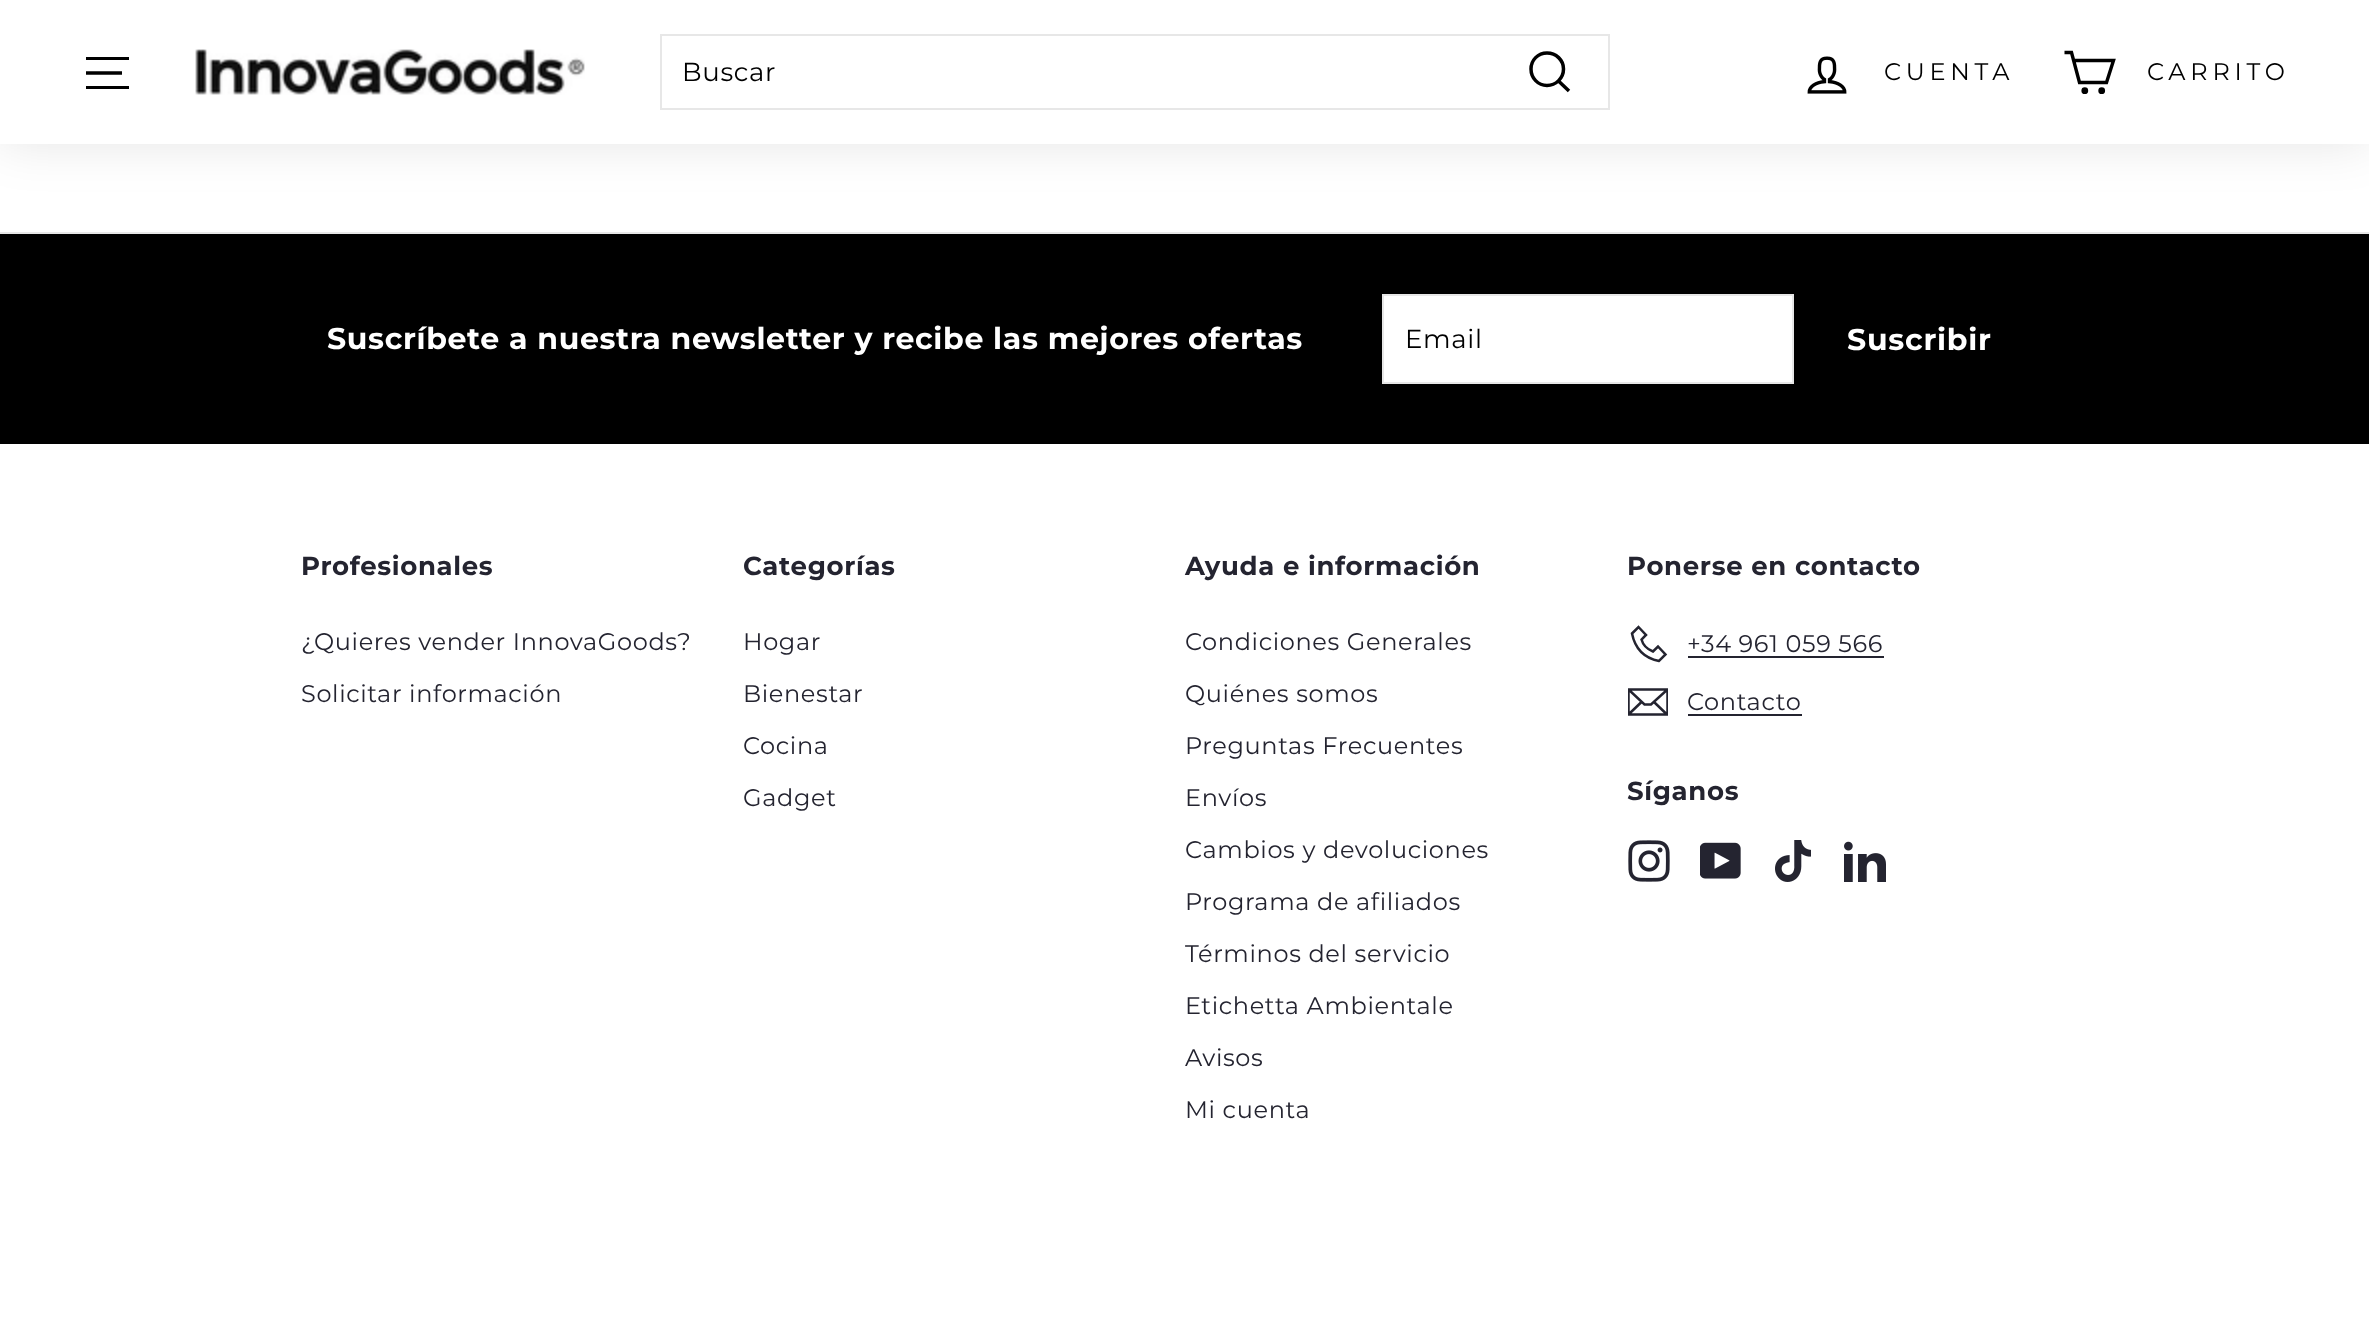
<?xml version="1.0" encoding="UTF-8"?>
<svg xmlns="http://www.w3.org/2000/svg" xmlns:xlink="http://www.w3.org/1999/xlink" width="2369" height="1321">
  <defs>
    <clipPath id="clip1"><rect x="1628" y="682" width="40" height="40" /></clipPath>
  </defs>
  <rect width="100%" height="100%" fill="#ffffff" />
  <rect width="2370" height="144" fill="#000000" fill-opacity="0.1" filter="blur(25px)" />
  <rect width="2369" height="144" fill="#ffffff" />
  <rect x="86" y="57" width="43" height="3" fill="#000000" />
  <path d="M 86 73 h 36" fill="none" stroke="#000000" stroke-width="3.4" />
  <rect x="86" y="86" width="43" height="3" fill="#000000" />
  <image x="195" y="49" width="390" height="46" xlink:href="image1.png" />
  <rect x="661" y="35" width="948" height="74" fill="none" stroke="#e7e7e7" stroke-width="2" />
  <path d="M 1563.5 69 c 0 9 -7.5 16.5 -16.5 16.5 c -9 0 -16 -7.5 -16 -16.5 c 0 -9 7 -16 16 -16 c 9 0 16.5 7 16.5 16 z m 5.5 22 l -10.5 -10" fill="none" stroke="#000000" stroke-width="3.5" />
  <image x="1807" y="56" width="40" height="38" xlink:href="image2.png" />
  <path d="M 2074 60.5 h 39.5 l -7 22 h -27 l -8 -30 h -7" fill="none" stroke="#000000" stroke-width="3.4" />
  <circle cx="2084.8" cy="90.7" r="1.7" fill="none" stroke="#000000" stroke-width="3.4" />
  <circle cx="2101.7" cy="90.7" r="1.7" fill="none" stroke="#000000" stroke-width="3.4" />
  <rect y="234" width="2369" height="210" fill="#000000" />
  <rect y="232" width="2369" height="2" fill="#e7e7e7" />
  <rect x="1383" y="295" width="410" height="88" fill="#ffffff" stroke="#e7e7e7" stroke-width="2" />
  <path d="M 1638.5 627 l 7.5 8 l -4.5 4.5 c 1.5 5.5 5 9.5 11.5 12 l 5 -5 l 7.5 8 l -6.5 6.5 c -15 -3 -24 -12.5 -27 -27.5 z" fill="none" stroke="#242430" stroke-width="2.5" />
  <rect x="1688" y="656" width="196" height="2" fill="#242430" />
  <g clip-path="url(#clip1)">
    <path d="M 1667.5 714.5 h -39 v -25 h 39 z m -39 -25 l 16 15 h 6.5 l 16.5 -15 m -26 12.5 l -12.5 12 m 38 0.5 l -13 -12.5" fill="none" stroke="#242430" stroke-width="2.5" />
  </g>
  <rect x="1688" y="714" width="114" height="2" fill="#242430" />
  <image x="1628" y="840" width="42" height="42" xlink:href="image3.png" />
  <image x="1700" y="842" width="41" height="37" xlink:href="image4.png" />
  <image x="1775" y="840" width="36" height="42" xlink:href="image5.png" />
  <image x="1844" y="841" width="42" height="41" xlink:href="image6.png" />
  <text x="682" y="81" style="font-family: Montserrat; font-size: 26px; letter-spacing: 0.65px; fill: #000000">Buscar</text>
  <text x="1884" y="80" style="font-family: Montserrat; font-size: 24px; letter-spacing: 4.75px; fill: #000000">CUENTA</text>
  <text x="2147" y="80" style="font-family: Montserrat; font-size: 24px; letter-spacing: 4.75px; fill: #000000">CARRITO</text>
  <text x="327" y="349" style="font-family: Montserrat; font-size: 30px; font-weight: bold; letter-spacing: 0.65px; fill: #ffffff">Suscríbete a nuestra newsletter y recibe las mejores ofertas</text>
  <text x="1405" y="348" style="font-family: Montserrat; font-size: 26px; letter-spacing: 0.65px; fill: #000000">Email</text>
  <text x="1847" y="350" style="font-family: Montserrat; font-size: 30px; font-weight: bold; letter-spacing: 0.75px; fill: #ffffff">Suscribir</text>
  <text x="301" y="575" style="font-family: Montserrat; font-size: 26px; font-weight: bold; letter-spacing: 0.65px; fill: #242430">Profesionales</text>
  <text x="301" y="650" style="font-family: Montserrat; font-size: 24px; letter-spacing: 0.65px; fill: #242430">¿Quieres vender InnovaGoods?</text>
  <text x="301" y="702" style="font-family: Montserrat; font-size: 24px; letter-spacing: 0.65px; fill: #242430">Solicitar información</text>
  <text x="743" y="575" style="font-family: Montserrat; font-size: 26px; font-weight: bold; letter-spacing: 0.65px; fill: #242430">Categorías</text>
  <text x="743" y="650" style="font-family: Montserrat; font-size: 24px; letter-spacing: 0.65px; fill: #242430">Hogar</text>
  <text x="743" y="702" style="font-family: Montserrat; font-size: 24px; letter-spacing: 0.65px; fill: #242430">Bienestar</text>
  <text x="743" y="754" style="font-family: Montserrat; font-size: 24px; letter-spacing: 0.65px; fill: #242430">Cocina</text>
  <text x="743" y="806" style="font-family: Montserrat; font-size: 24px; letter-spacing: 0.65px; fill: #242430">Gadget</text>
  <text x="1185" y="575" style="font-family: Montserrat; font-size: 26px; font-weight: bold; letter-spacing: 0.65px; fill: #242430">Ayuda e información</text>
  <text x="1185" y="650" style="font-family: Montserrat; font-size: 24px; letter-spacing: 0.65px; fill: #242430">Condiciones Generales</text>
  <text x="1185" y="702" style="font-family: Montserrat; font-size: 24px; letter-spacing: 0.65px; fill: #242430">Quiénes somos</text>
  <text x="1185" y="754" style="font-family: Montserrat; font-size: 24px; letter-spacing: 0.65px; fill: #242430">Preguntas Frecuentes</text>
  <text x="1185" y="806" style="font-family: Montserrat; font-size: 24px; letter-spacing: 0.65px; fill: #242430">Envíos</text>
  <text x="1185" y="858" style="font-family: Montserrat; font-size: 24px; letter-spacing: 0.65px; fill: #242430">Cambios y devoluciones</text>
  <text x="1185" y="910" style="font-family: Montserrat; font-size: 24px; letter-spacing: 0.65px; fill: #242430">Programa de afiliados</text>
  <text x="1185" y="962" style="font-family: Montserrat; font-size: 24px; letter-spacing: 0.65px; fill: #242430">Términos del servicio</text>
  <text x="1185" y="1014" style="font-family: Montserrat; font-size: 24px; letter-spacing: 0.65px; fill: #242430">Etichetta Ambientale</text>
  <text x="1185" y="1066" style="font-family: Montserrat; font-size: 24px; letter-spacing: 0.65px; fill: #242430">Avisos</text>
  <text x="1185" y="1118" style="font-family: Montserrat; font-size: 24px; letter-spacing: 0.65px; fill: #242430">Mi cuenta</text>
  <text x="1627" y="575" style="font-family: Montserrat; font-size: 26px; font-weight: bold; letter-spacing: 0.65px; fill: #242430">Ponerse en contacto</text>
  <text x="1687" y="652" style="font-family: Montserrat; font-size: 24px; letter-spacing: 0.65px; fill: #242430">+34 961 059 566</text>
  <text x="1687" y="710" style="font-family: Montserrat; font-size: 24px; letter-spacing: 0.65px; fill: #242430">Contacto</text>
  <text x="1627" y="800" style="font-family: Montserrat; font-size: 26px; font-weight: bold; letter-spacing: 0.65px; fill: #242430">Síganos</text>
</svg>
